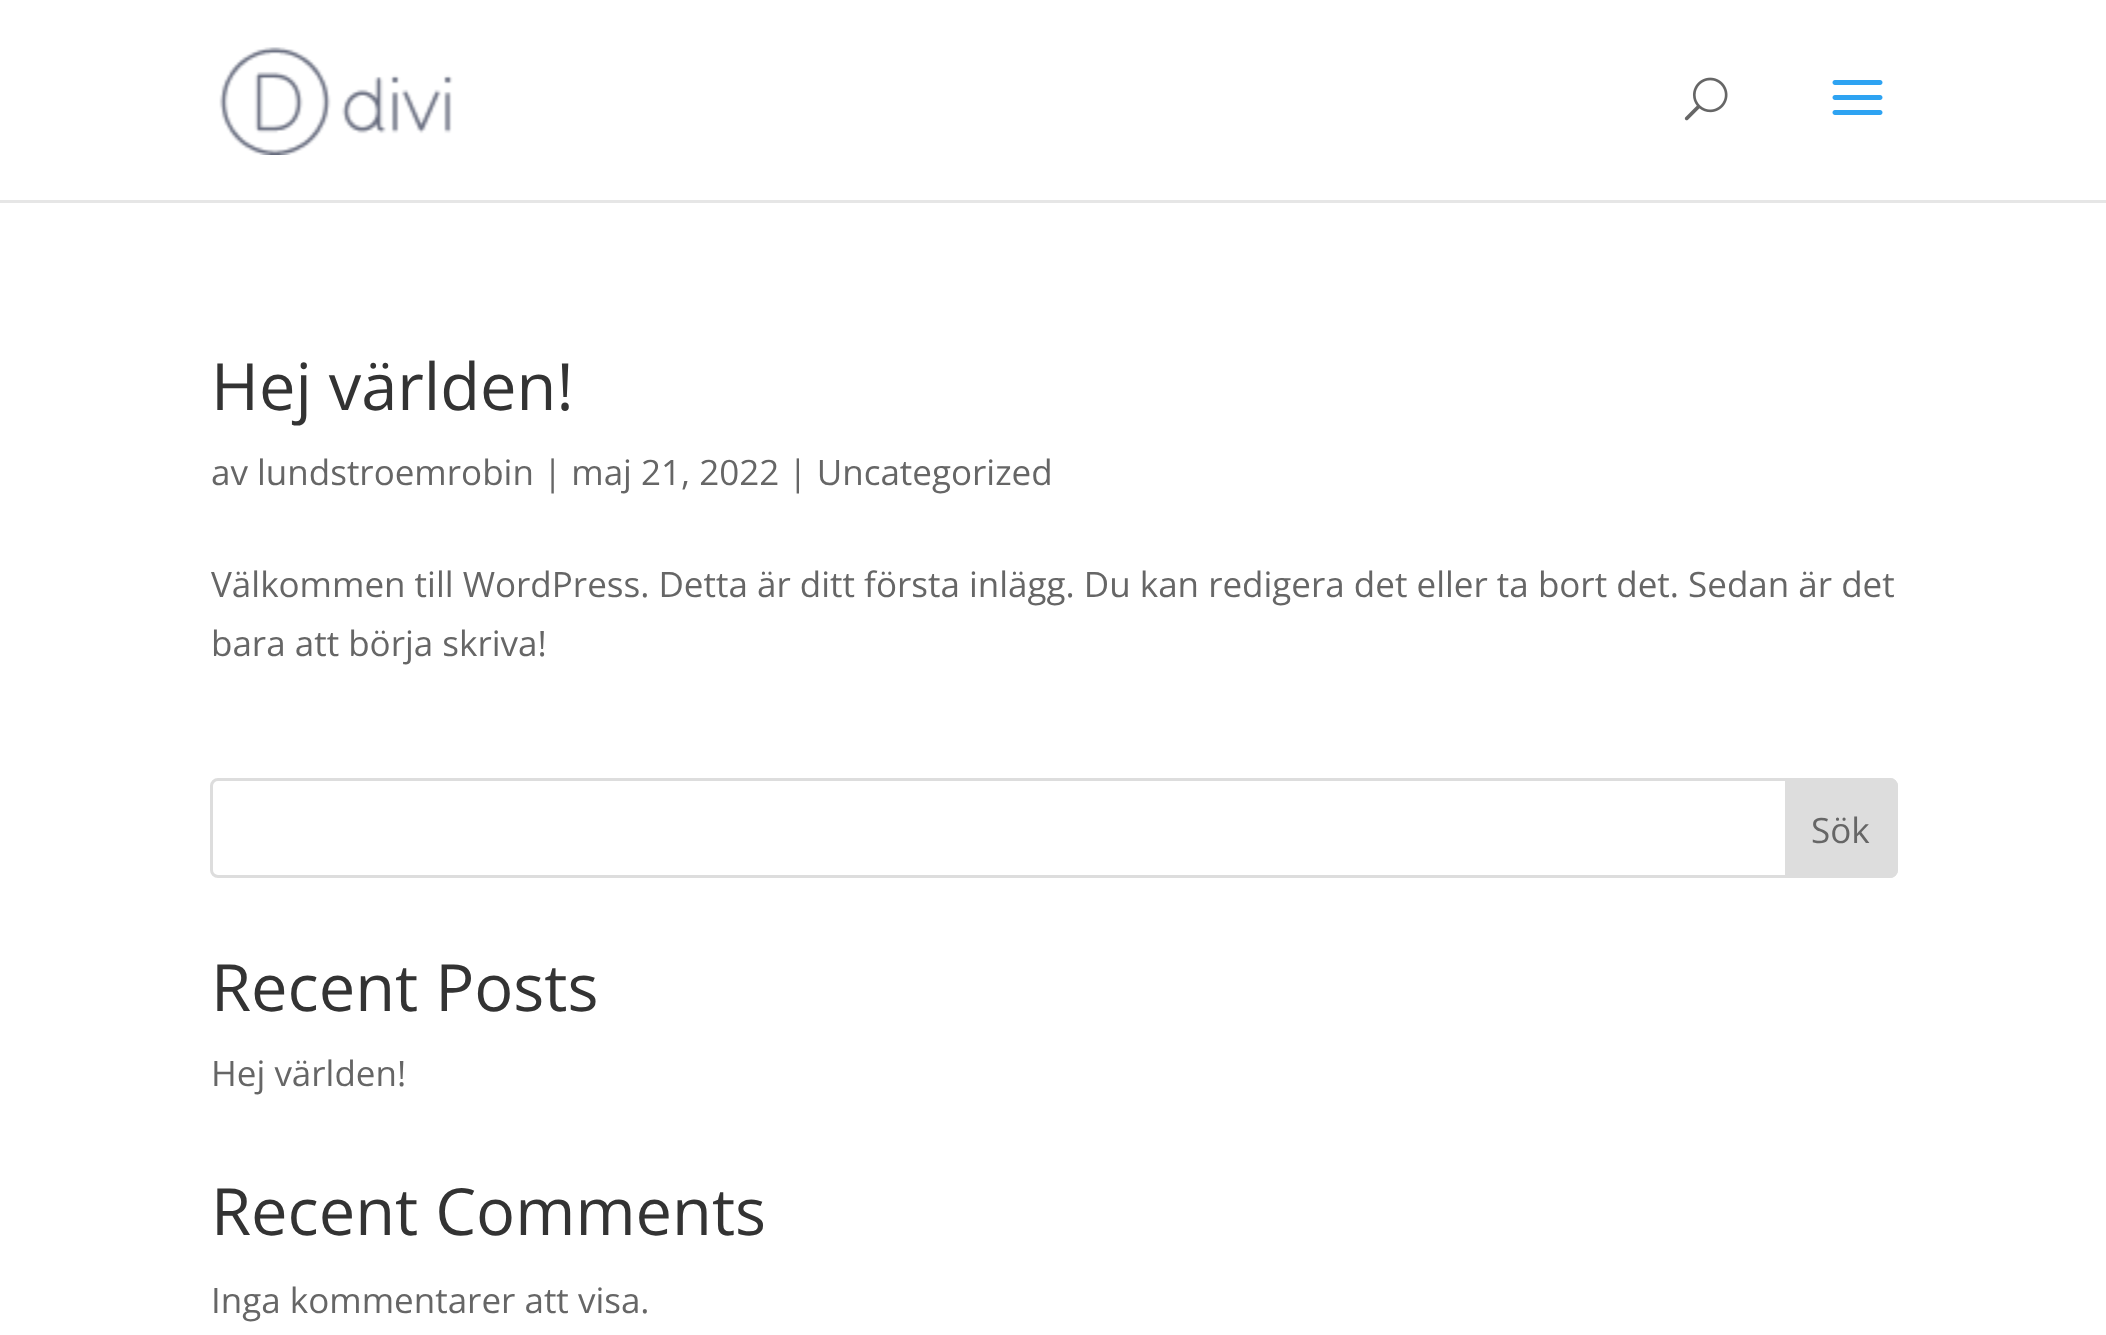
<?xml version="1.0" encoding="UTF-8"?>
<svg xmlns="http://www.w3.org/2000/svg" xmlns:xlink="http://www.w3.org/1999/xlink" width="2106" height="1335">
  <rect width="100%" height="100%" fill="#ffffff" />
  <path d="M 0 200 v 3 h 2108 v -200 v 197 z" fill="#e6e6e6" />
  <image x="219" y="47" width="234" height="108" xlink:href="image1.png" />
  <image x="1684" y="77" width="44" height="44" xlink:href="image2.png" />
  <image x="1832" y="80" width="51" height="35" xlink:href="image3.png" />
  <rect x="211.5" y="779.5" width="1685" height="97" rx="6.5" fill="none" stroke="#dddddd" stroke-width="3" />
  <path d="M 1786.5 779.5 h 103.5 c 3.5 0 6.5 3 6.5 6.5 v 84 c 0 3.5 -3 6.5 -6.5 6.5 h -103.5 z" fill="#dddddd" stroke="#dddddd" stroke-width="3" />
  <text x="211" y="410" style="font-family: Open Sans; font-size: 65px; fill: #333333">Hej världen!</text>
  <text x="211" y="485" style="font-family: Open Sans; font-size: 35px; fill: #666666">av lundstroemrobin | maj 21, 2022 | Uncategorized</text>
  <text x="211" y="597" style="font-family: Open Sans; font-size: 35px; fill: #666666">Välkommen till WordPress. Detta är ditt första inlägg. Du kan redigera det eller ta bort det. Sedan är det</text>
  <text x="211" y="656" style="font-family: Open Sans; font-size: 35px; fill: #666666">bara att börja skriva!</text>
  <text x="1811" y="843" style="font-family: Open Sans; font-size: 35px; fill: #666666">Sök</text>
  <text x="211" y="1011" style="font-family: Open Sans; font-size: 65px; fill: #333333">Recent Posts</text>
  <text x="211" y="1086" style="font-family: Open Sans; font-size: 35px; fill: #666666">Hej världen!</text>
  <text x="211" y="1235" style="font-family: Open Sans; font-size: 65px; fill: #333333">Recent Comments</text>
  <text x="211" y="1313" style="font-family: Open Sans; font-size: 35px; fill: #666666">Inga kommentarer att visa.</text>
</svg>
